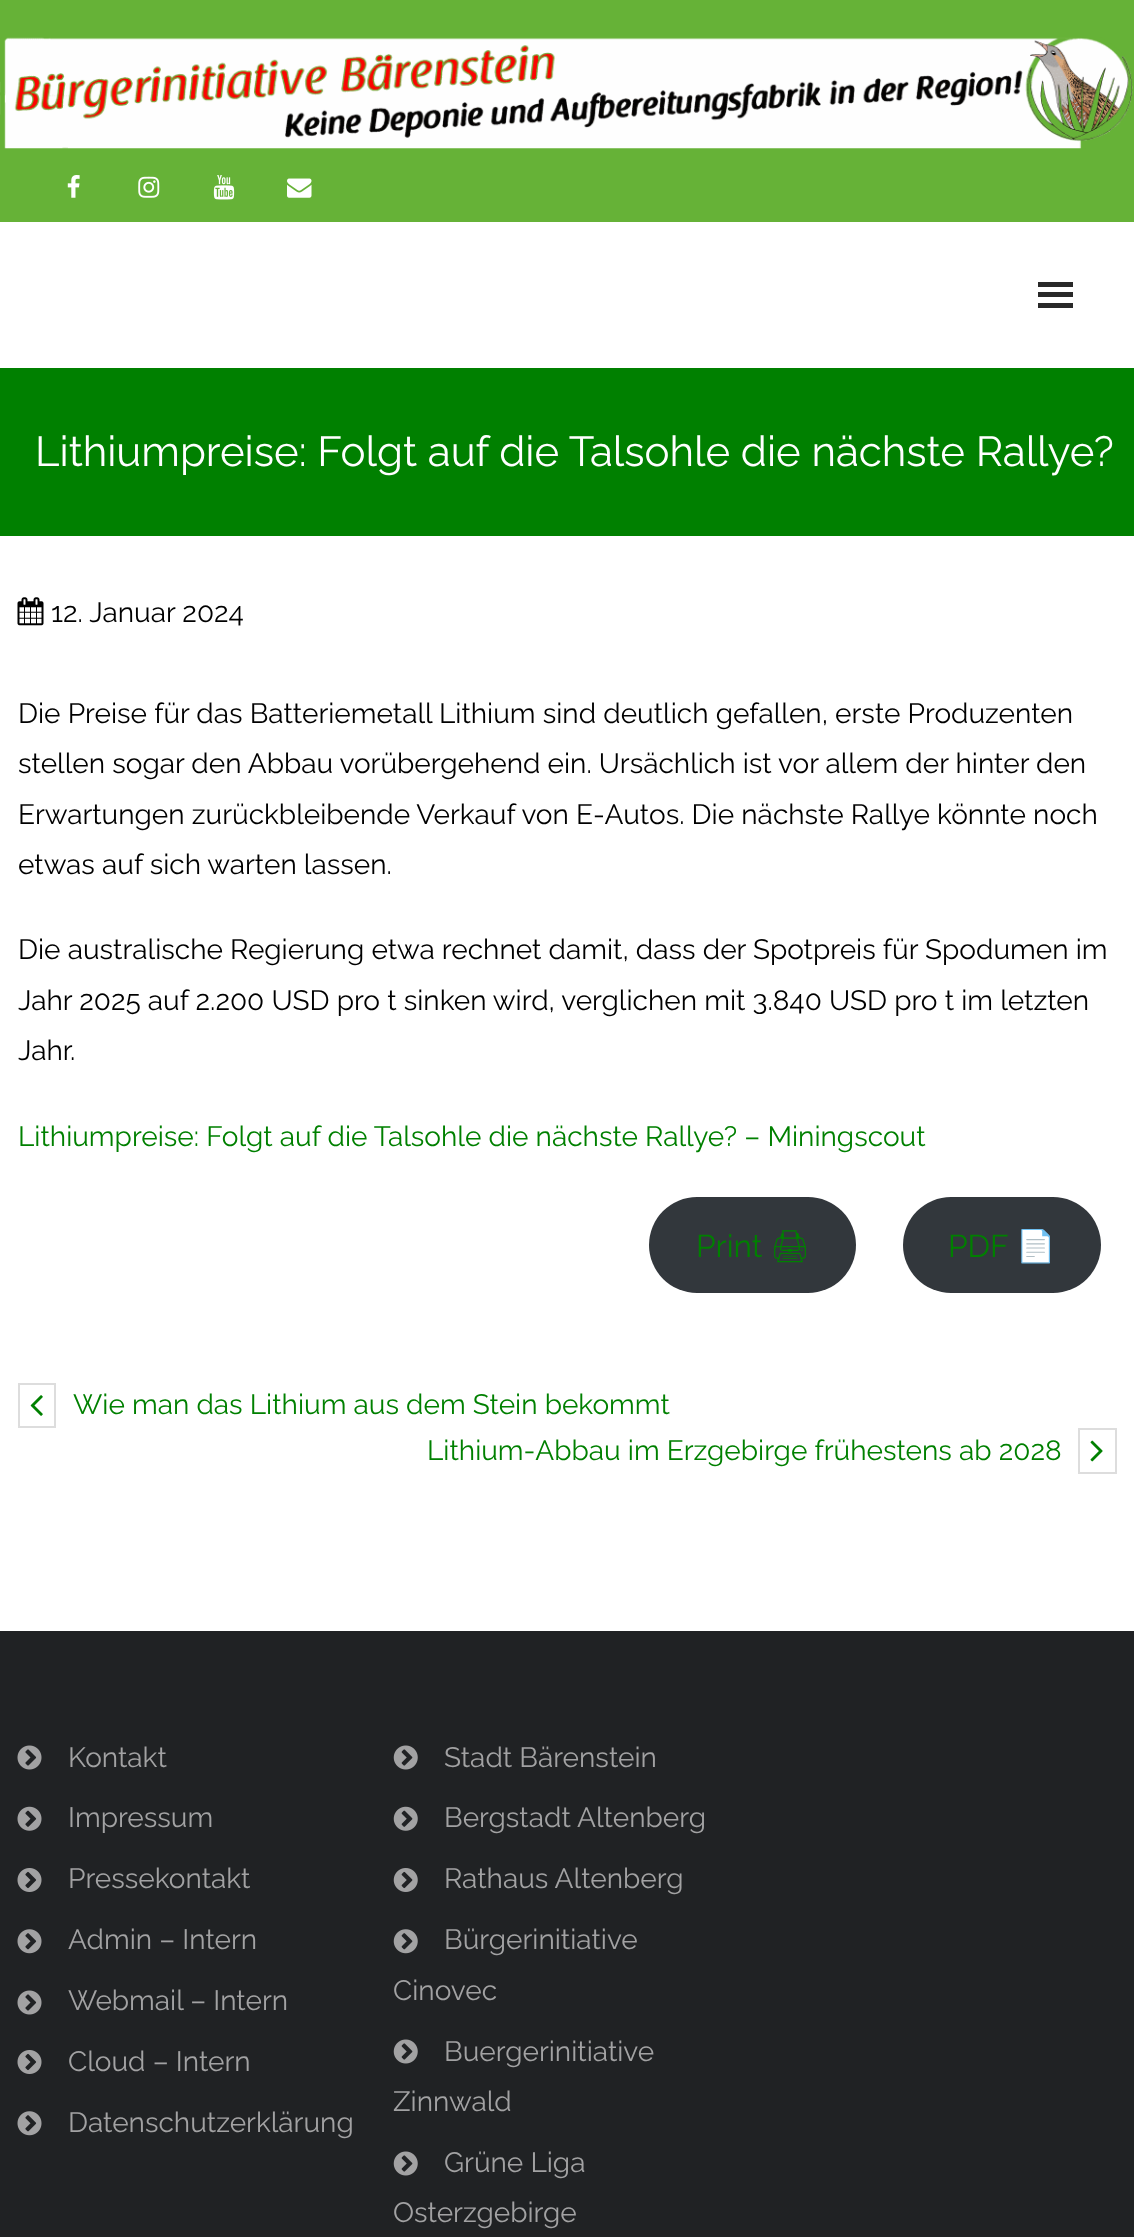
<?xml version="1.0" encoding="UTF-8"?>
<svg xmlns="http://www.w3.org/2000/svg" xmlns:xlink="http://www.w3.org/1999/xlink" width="1134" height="2237">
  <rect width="100%" height="100%" fill="#66b237" />
  <image x="0" y="37" width="1133" height="112" xlink:href="image1.png" />
  <rect y="222" width="1134" height="1409" fill="#ffffff" />
  <image x="67" y="175" width="13" height="23" xlink:href="image2.png" />
  <image x="138" y="176" width="22" height="22" xlink:href="image3.png" />
  <image x="213" y="175" width="22" height="25" xlink:href="image4.png" />
  <image x="287" y="178" width="25" height="20" xlink:href="image5.png" />
  <rect x="1038" y="282" width="35" height="5" fill="#292929" />
  <rect x="1038" y="292" width="35" height="5" fill="#292929" />
  <rect x="1038" y="303" width="35" height="5" fill="#292929" />
  <rect y="368" width="1134" height="168" fill="#008000" />
  <image x="17" y="597" width="27" height="29" xlink:href="image6.png" />
  <rect x="649" y="1197" width="207" height="96" rx="48" fill="#32373c" />
  <rect x="903" y="1197" width="198" height="96" rx="48" fill="#32373c" />
  <rect x="19" y="1384" width="36" height="43" fill="none" stroke="#dddddd" stroke-width="2" />
  <image x="30" y="1395" width="13" height="21" xlink:href="image7.png" />
  <rect x="1079" y="1429" width="37" height="44" fill="none" stroke="#dddddd" stroke-width="2" />
  <image x="1090" y="1440" width="13" height="22" xlink:href="image8.png" />
  <rect y="1631" width="1134" height="606" fill="#202224" />
  <image x="17" y="1745" width="25" height="25" xlink:href="image9.png" />
  <image x="17" y="1806" width="25" height="25" xlink:href="image10.png" />
  <image x="17" y="1868" width="25" height="24" xlink:href="image11.png" />
  <image x="17" y="1929" width="25" height="25" xlink:href="image12.png" />
  <image x="17" y="1990" width="25" height="25" xlink:href="image9.png" />
  <image x="17" y="2050" width="25" height="24" xlink:href="image11.png" />
  <image x="17" y="2111" width="25" height="25" xlink:href="image12.png" />
  <image x="393" y="1745" width="25" height="25" xlink:href="image13.png" />
  <image x="393" y="1806" width="25" height="25" xlink:href="image14.png" />
  <image x="393" y="1868" width="25" height="24" xlink:href="image15.png" />
  <image x="393" y="1929" width="25" height="25" xlink:href="image16.png" />
  <image x="393" y="2039" width="25" height="25" xlink:href="image13.png" />
  <image x="393" y="2151" width="25" height="25" xlink:href="image13.png" />
  <text x="35" y="466" style="font-family: Raleway; font-size: 42px; fill: #ffffff">Lithiumpreise: Folgt auf die Talsohle die nächste Rallye?</text>
  <text x="51" y="622" style="font-family: Raleway; font-size: 28px; fill: #000000">12. Januar 2024</text>
  <text x="18" y="723" style="font-family: Raleway; font-size: 28px; fill: #000000">Die Preise für das Batteriemetall Lithium sind deutlich gefallen, erste Produzenten</text>
  <text x="18" y="773" style="font-family: Raleway; font-size: 28px; fill: #000000">stellen sogar den Abbau vorübergehend ein. Ursächlich ist vor allem der hinter den</text>
  <text x="18" y="824" style="font-family: Raleway; font-size: 28px; fill: #000000">Erwartungen zurückbleibende Verkauf von E-Autos. Die nächste Rallye könnte noch</text>
  <text x="18" y="874" style="font-family: Raleway; font-size: 28px; fill: #000000">etwas auf sich warten lassen.</text>
  <text x="18" y="959" style="font-family: Raleway; font-size: 28px; fill: #000000">Die australische Regierung etwa rechnet damit, dass der Spotpreis für Spodumen im</text>
  <text x="18" y="1010" style="font-family: Raleway; font-size: 28px; fill: #000000">Jahr 2025 auf 2.200 USD pro t sinken wird, verglichen mit 3.840 USD pro t im letzten</text>
  <text x="18" y="1060" style="font-family: Raleway; font-size: 28px; fill: #000000">Jahr.</text>
  <text x="18" y="1146" style="font-family: Raleway; font-size: 28px; fill: #008000">Lithiumpreise: Folgt auf die Talsohle die nächste Rallye? – Miningscout</text>
  <text x="696" y="1257" style="font-family: Raleway; font-size: 31.5px; fill: #008000">Print</text>
  <text x="770" y="1257" style="font-family: Noto Emoji; font-size: 31.5px; fill: #008000">🖨</text>
  <text x="948" y="1257" style="font-family: Raleway; font-size: 31.5px; fill: #008000">PDF</text>
  <text x="1016" y="1257" style="font-family: Noto Color Emoji; font-size: 31.5px; fill: #008000">📄</text>
  <text x="73" y="1414" style="font-family: Raleway; font-size: 28px; fill: #008000">Wie man das Lithium aus dem Stein bekommt</text>
  <text x="427" y="1460" style="font-family: Raleway; font-size: 28px; fill: #008000">Lithium-Abbau im Erzgebirge frühestens ab 2028</text>
  <text x="68" y="1767" style="font-family: Raleway; font-size: 28px; fill: #a2a2a3">Kontakt</text>
  <text x="68" y="1827" style="font-family: Raleway; font-size: 28px; fill: #a2a2a3">Impressum</text>
  <text x="68" y="1888" style="font-family: Raleway; font-size: 28px; fill: #a2a2a3">Pressekontakt</text>
  <text x="68" y="1949" style="font-family: Raleway; font-size: 28px; fill: #a2a2a3">Admin – Intern</text>
  <text x="68" y="2010" style="font-family: Raleway; font-size: 28px; fill: #a2a2a3">Webmail – Intern</text>
  <text x="68" y="2071" style="font-family: Raleway; font-size: 28px; fill: #a2a2a3">Cloud – Intern</text>
  <text x="68" y="2132" style="font-family: Raleway; font-size: 28px; fill: #a2a2a3">Datenschutzerklärung</text>
  <text x="444" y="1767" style="font-family: Raleway; font-size: 28px; fill: #a2a2a3">Stadt Bärenstein</text>
  <text x="444" y="1827" style="font-family: Raleway; font-size: 28px; fill: #a2a2a3">Bergstadt Altenberg</text>
  <text x="444" y="1888" style="font-family: Raleway; font-size: 28px; fill: #a2a2a3">Rathaus Altenberg</text>
  <text x="444" y="1949" style="font-family: Raleway; font-size: 28px; fill: #a2a2a3">Bürgerinitiative</text>
  <text x="393" y="2000" style="font-family: Raleway; font-size: 28px; fill: #a2a2a3">Cinovec</text>
  <text x="444" y="2061" style="font-family: Raleway; font-size: 28px; fill: #a2a2a3">Buergerinitiative</text>
  <text x="393" y="2111" style="font-family: Raleway; font-size: 28px; fill: #a2a2a3">Zinnwald</text>
  <text x="444" y="2172" style="font-family: Raleway; font-size: 28px; fill: #a2a2a3">Grüne Liga</text>
  <text x="393" y="2222" style="font-family: Raleway; font-size: 28px; fill: #a2a2a3">Osterzgebirge</text>
</svg>
